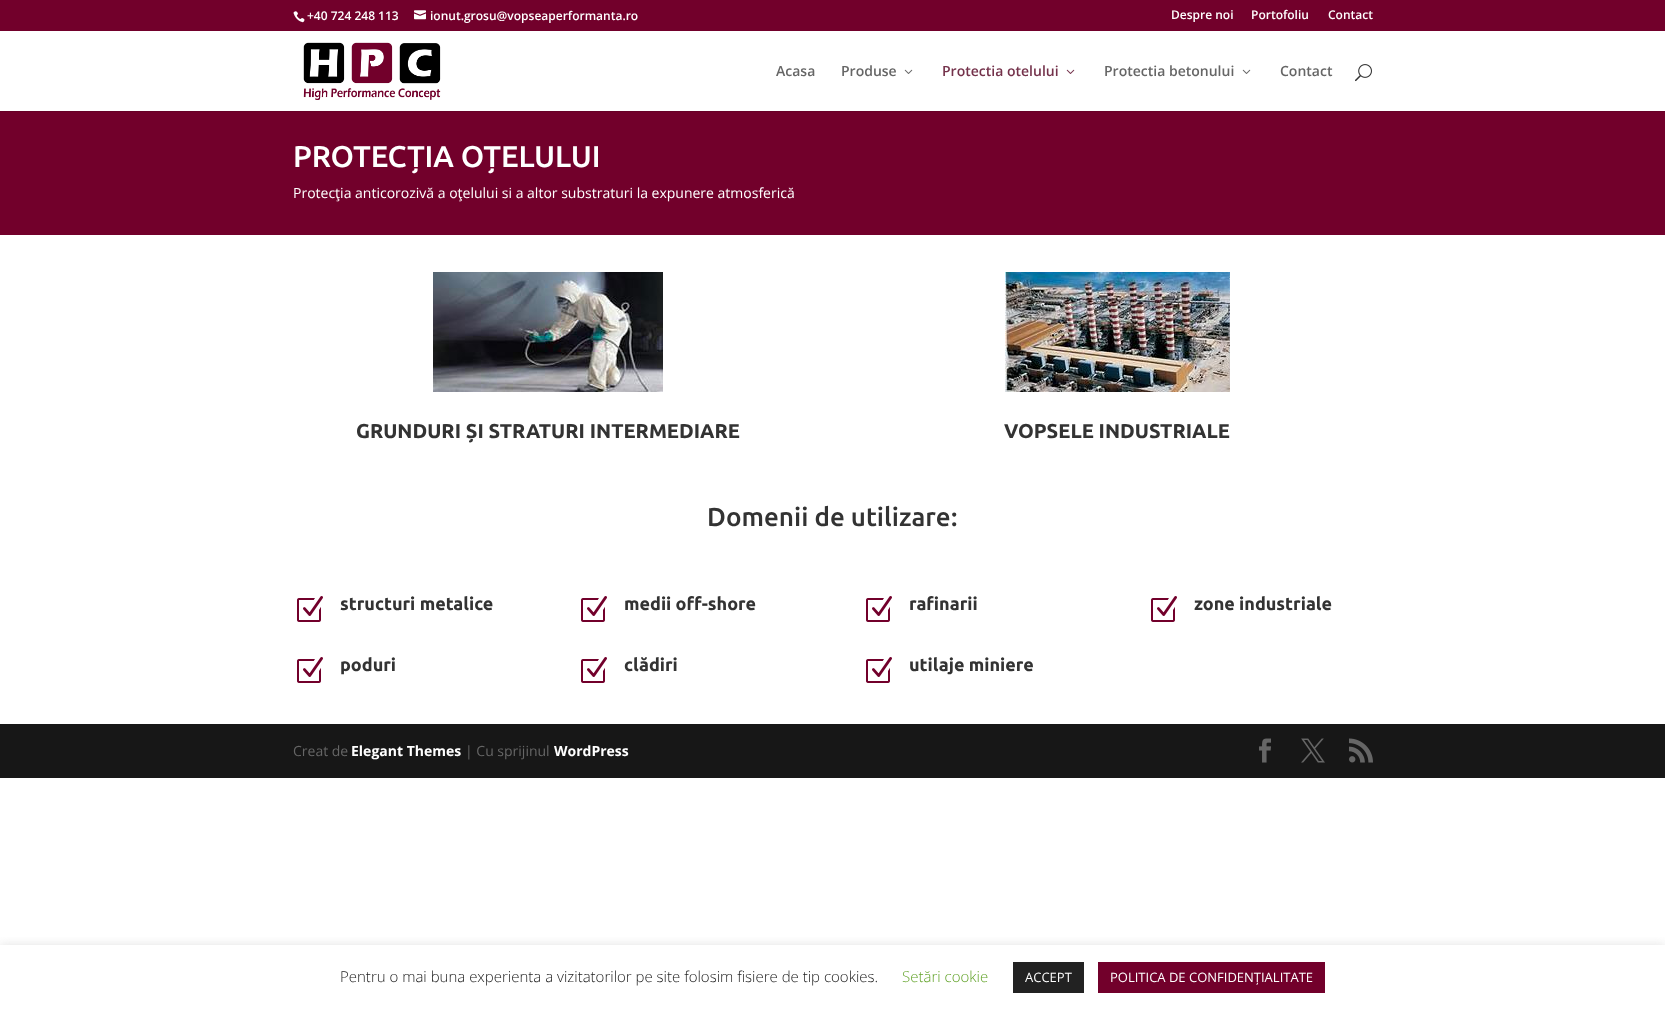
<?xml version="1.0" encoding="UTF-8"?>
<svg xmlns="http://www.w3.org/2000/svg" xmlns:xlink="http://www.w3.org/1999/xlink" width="1665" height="1010">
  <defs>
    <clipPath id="clip1"><rect x="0" y="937" width="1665" height="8" /></clipPath>
  </defs>
  <rect width="100%" height="100%" fill="#ffffff" />
  <rect width="1665" height="31" fill="#72002b" />
  <image x="293" y="11" width="12" height="12" xlink:href="image1.png" />
  <image x="414" y="10" width="12" height="10" xlink:href="image2.png" />
  <rect y="111" width="1665" height="1" fill="#670027" />
  <image x="303" y="42" width="138" height="58" xlink:href="image3.png" />
  <image x="904" y="69" width="9" height="5" xlink:href="image4.png" />
  <image x="1066" y="69" width="9" height="5" xlink:href="image5.png" />
  <image x="1242" y="69" width="9" height="5" xlink:href="image4.png" />
  <image x="1355" y="64" width="17" height="18" xlink:href="image6.png" />
  <rect y="112" width="1665" height="123" fill="#72002b" />
  <image x="433" y="272" width="230" height="120" xlink:href="image7.png" />
  <image x="1005" y="272" width="225" height="120" xlink:href="image8.png" />
  <image x="297" y="596" width="26" height="26" xlink:href="image9.png" />
  <image x="297" y="657" width="26" height="26" xlink:href="image9.png" />
  <image x="581" y="596" width="26" height="26" xlink:href="image9.png" />
  <image x="581" y="657" width="26" height="26" xlink:href="image9.png" />
  <image x="866" y="596" width="26" height="26" xlink:href="image9.png" />
  <image x="866" y="657" width="26" height="26" xlink:href="image9.png" />
  <image x="1151" y="596" width="26" height="26" xlink:href="image9.png" />
  <rect y="724" width="1665" height="54" fill="#171717" />
  <image x="1259" y="738" width="12" height="25" xlink:href="image10.png" />
  <image x="1301" y="738" width="24" height="25" xlink:href="image11.png" />
  <image x="1349" y="738" width="24" height="25" xlink:href="image12.png" />
  <g clip-path="url(#clip1)">
    <rect y="944" width="1665" height="65" fill="#acabab" fill-opacity="0.3" filter="blur(5px)" />
  </g>
  <rect x="1013" y="962" width="71" height="31" fill="#222222" />
  <rect x="1098" y="962" width="227" height="31" fill="#72002b" />
  <text x="307" y="20" style="font-family: Open Sans; font-size: 12px; font-weight: 600; fill: #ffffff">+40 724 248 113</text>
  <text x="430" y="20" style="font-family: Open Sans; font-size: 12px; font-weight: 600; fill: #ffffff">ionut.grosu@vopseaperformanta.ro</text>
  <text x="1171" y="19" style="font-family: Open Sans; font-size: 12px; font-weight: 600; fill: #ffffff">Despre noi</text>
  <text x="1251" y="19" style="font-family: Open Sans; font-size: 12px; font-weight: 600; fill: #ffffff">Portofoliu</text>
  <text x="1328" y="19" style="font-family: Open Sans; font-size: 12px; font-weight: 600; fill: #ffffff">Contact</text>
  <text x="776" y="76" style="font-family: Open Sans; font-size: 14px; font-weight: 600; fill: #666666">Acasa</text>
  <text x="841" y="76" style="font-family: Open Sans; font-size: 14px; font-weight: 600; fill: #666666">Produse</text>
  <text x="942" y="76" style="font-family: Open Sans; font-size: 14px; font-weight: 600; fill: #74324b">Protectia otelului</text>
  <text x="1104" y="76" style="font-family: Open Sans; font-size: 14px; font-weight: 600; fill: #666666">Protectia betonului</text>
  <text x="1280" y="76" style="font-family: Open Sans; font-size: 14px; font-weight: 600; fill: #666666">Contact</text>
  <text x="293" y="167" style="font-family: Ubuntu; font-size: 30px; font-weight: 500; fill: #ffffff">PROTECȚIA OȚELULUI</text>
  <text x="293" y="198" style="font-family: Open Sans; font-size: 14px; fill: #ffffff">Protecţia anticorozivă a oţelului si a altor substraturi la expunere atmosferică</text>
  <text x="356" y="438" style="font-family: Ubuntu; font-size: 20px; font-weight: bold; fill: #333333">GRUNDURI ȘI STRATURI INTERMEDIARE</text>
  <text x="1004" y="438" style="font-family: Ubuntu; font-size: 20px; font-weight: bold; fill: #333333">VOPSELE INDUSTRIALE</text>
  <text x="707" y="526" style="font-family: Ubuntu; font-size: 26px; font-weight: 500; fill: #333333">Domenii de utilizare:</text>
  <text x="340" y="610" style="font-family: Ubuntu; font-size: 18px; font-weight: bold; fill: #333333">structuri metalice</text>
  <text x="340" y="671" style="font-family: Ubuntu; font-size: 18px; font-weight: bold; fill: #333333">poduri</text>
  <text x="624" y="610" style="font-family: Ubuntu; font-size: 18px; font-weight: bold; fill: #333333">medii off-shore</text>
  <text x="624" y="671" style="font-family: Ubuntu; font-size: 18px; font-weight: bold; fill: #333333">clădiri</text>
  <text x="909" y="610" style="font-family: Ubuntu; font-size: 18px; font-weight: bold; fill: #333333">rafinarii</text>
  <text x="909" y="671" style="font-family: Ubuntu; font-size: 18px; font-weight: bold; fill: #333333">utilaje miniere</text>
  <text x="1194" y="610" style="font-family: Ubuntu; font-size: 18px; font-weight: bold; fill: #333333">zone industriale</text>
  <text x="293" y="756" style="font-family: Open Sans; font-size: 14px; fill: #666666">Creat de</text>
  <text x="351" y="756" style="font-family: Open Sans; font-size: 14px; font-weight: bold; fill: #ffffff">Elegant Themes</text>
  <text x="465" y="756" style="font-family: Open Sans; font-size: 14px; fill: #666666">| Cu sprijinul</text>
  <text x="554" y="756" style="font-family: Open Sans; font-size: 14px; font-weight: bold; fill: #ffffff">WordPress</text>
  <text x="340" y="982" style="font-family: Open Sans; font-size: 15px; font-weight: 300; fill: #222222">Pentru o mai buna experienta a vizitatorilor pe site folosim fisiere de tip cookies.</text>
  <text x="902" y="982" style="font-family: Open Sans; font-size: 15px; font-weight: 300; fill: #62a329">Setări cookie</text>
  <text x="1025" y="982" style="font-family: Open Sans; font-size: 13px; fill: #ffffff">ACCEPT</text>
  <text x="1110" y="982" style="font-family: Open Sans; font-size: 13px; fill: #ffffff">POLITICA DE CONFIDENȚIALITATE</text>
</svg>
